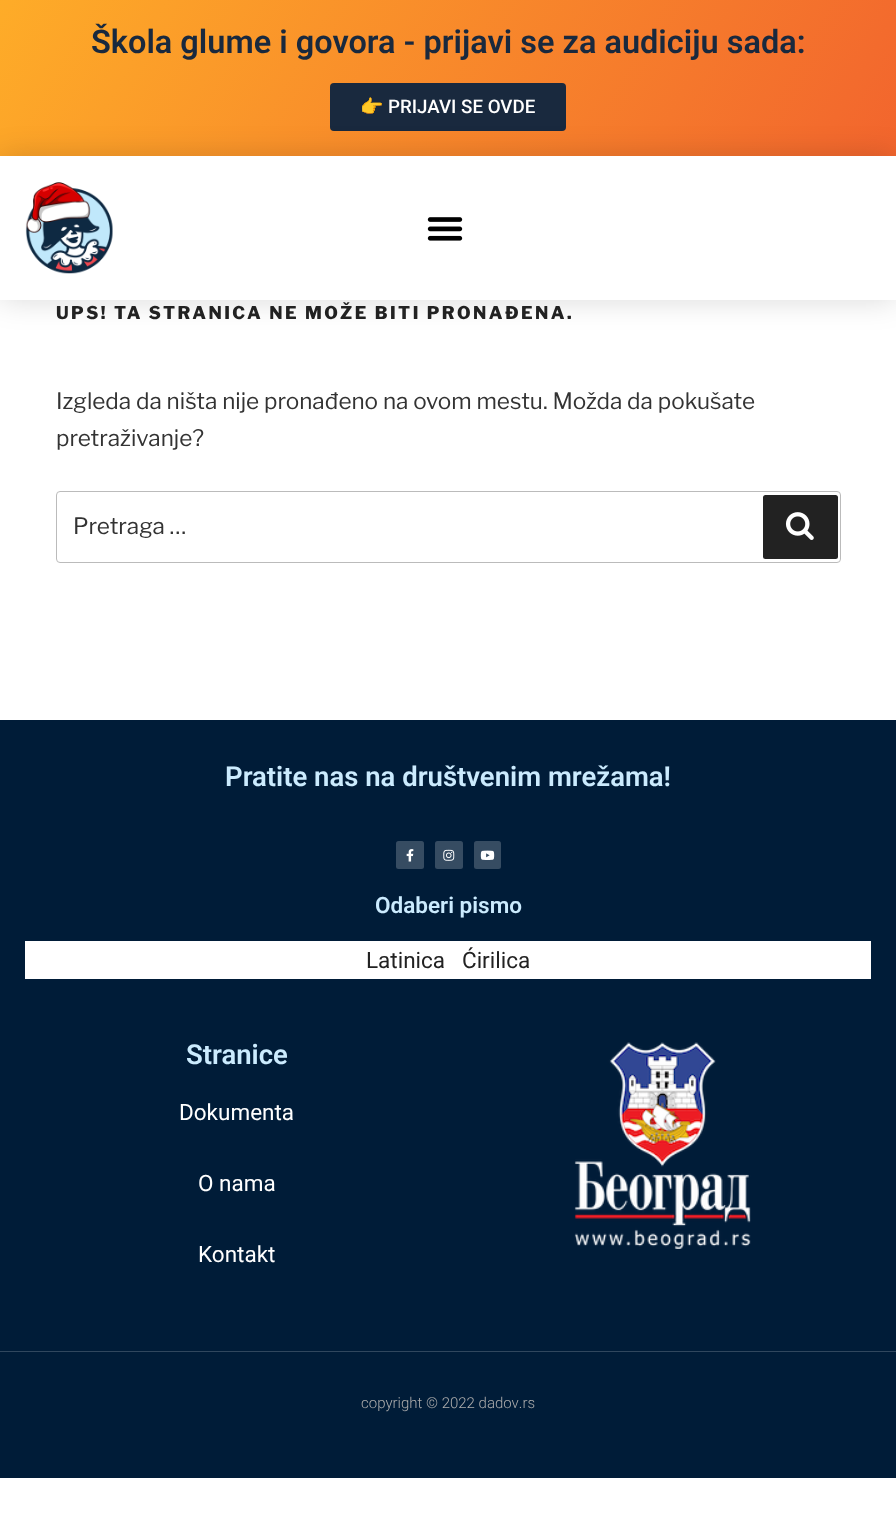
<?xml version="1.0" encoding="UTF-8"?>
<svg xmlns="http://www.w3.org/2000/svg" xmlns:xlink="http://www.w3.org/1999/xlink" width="896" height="1527">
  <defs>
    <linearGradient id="g1" gradientUnits="userSpaceOnUse" x1="156" y1="-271" x2="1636" y2="583"><stop offset="0" stop-color="#feac28" /><stop offset="1" stop-color="#e61e33" /></linearGradient>
  </defs>
  <rect width="100%" height="100%" fill="#ffffff" />
  <rect width="896" height="156" fill="url(#g1)" />
  <rect x="330" y="83" width="236" height="48" rx="4" fill="#19293e" />
  <rect y="156" width="896" height="144" fill="#000000" fill-opacity="0.15" filter="blur(15px)" />
  <rect y="156" width="896" height="144" fill="#ffffff" />
  <image x="25" y="182" width="88" height="92" xlink:href="image1.png" />
  <image x="427" y="217" width="36" height="24" xlink:href="image2.png" />
  <rect x="56.5" y="491.5" width="784" height="71" rx="3.5" fill="none" stroke="#bbbbbb" />
  <rect x="763" y="495" width="75" height="64" rx="2.5" fill="#222222" />
  <image x="785" y="512" width="29" height="28" xlink:href="image3.png" />
  <rect y="720" width="896" height="631" fill="#001c38" />
  <rect x="396" y="841" width="28" height="28" rx="2.5" fill="#364c62" />
  <image x="406" y="849" width="8" height="13" xlink:href="image4.png" />
  <rect x="435" y="841" width="28" height="28" rx="2.5" fill="#364c62" />
  <image x="443" y="849" width="12" height="12" xlink:href="image5.png" />
  <rect x="474" y="841" width="27" height="28" rx="2.5" fill="#364c62" />
  <image x="480" y="850" width="15" height="10" xlink:href="image6.png" />
  <rect x="25" y="941" width="846" height="38" fill="#ffffff" />
  <image x="574" y="1042" width="177" height="207" xlink:href="image7.png" />
  <rect y="1352" width="896" height="126" fill="#001c38" />
  <rect y="1351" width="896" height="1" fill="#30475e" />
  <text x="91" y="53" style="font-family: Roboto; font-size: 32.5px; font-weight: 600; fill: #19293e">Škola glume i govora - prijavi se za audiciju sada:</text>
  <text x="360" y="113" style="font-family: Noto Color Emoji; font-size: 18.75px; fill: #ffffff">👉</text>
  <text x="388" y="113" style="font-family: Roboto; font-size: 18.75px; font-weight: 500; fill: #ffffff">PRIJAVI SE OVDE</text>
  <text x="56" y="319" style="font-family: Libre Franklin; font-size: 17.5px; font-weight: 800; letter-spacing: 2.45px; fill: #222222">UPS! TA STRANICA NE MOŽE BITI PRONAĐENA.</text>
  <text x="56" y="409" style="font-family: Libre Franklin; font-size: 22.5px; fill: #333333">Izgleda da ništa nije pronađeno na ovom mestu. Možda da pokušate</text>
  <text x="56" y="446" style="font-family: Libre Franklin; font-size: 22.5px; fill: #333333">pretraživanje?</text>
  <text x="73" y="534" style="font-family: Libre Franklin; font-size: 22.5px; fill: #333333">Pretraga …</text>
  <text x="225" y="786" style="font-family: Roboto; font-size: 27.5px; font-weight: 600; fill: #cbebfe">Pratite nas na društvenim mrežama!</text>
  <text x="375" y="913" style="font-family: Roboto; font-size: 22.5px; font-weight: 600; fill: #cbebfe">Odaberi pismo</text>
  <text x="366" y="968" style="font-family: Roboto; font-size: 22.5px; fill: #222222">Latinica</text>
  <text x="462" y="968" style="font-family: Roboto; font-size: 22.5px; fill: #222222">Ćirilica</text>
  <text x="186" y="1064" style="font-family: Roboto; font-size: 27.5px; font-weight: 600; fill: #cbebfe">Stranice</text>
  <text x="179" y="1120" style="font-family: Roboto; font-size: 22.5px; fill: #ffffff">Dokumenta</text>
  <text x="198" y="1191" style="font-family: Roboto; font-size: 22.5px; fill: #ffffff">O nama</text>
  <text x="198" y="1262" style="font-family: Roboto; font-size: 22.5px; fill: #ffffff">Kontakt</text>
  <text x="361" y="1408" style="font-family: Roboto; font-size: 15px; font-weight: 300; fill: #adadad">copyright © 2022 dadov.rs</text>
</svg>
